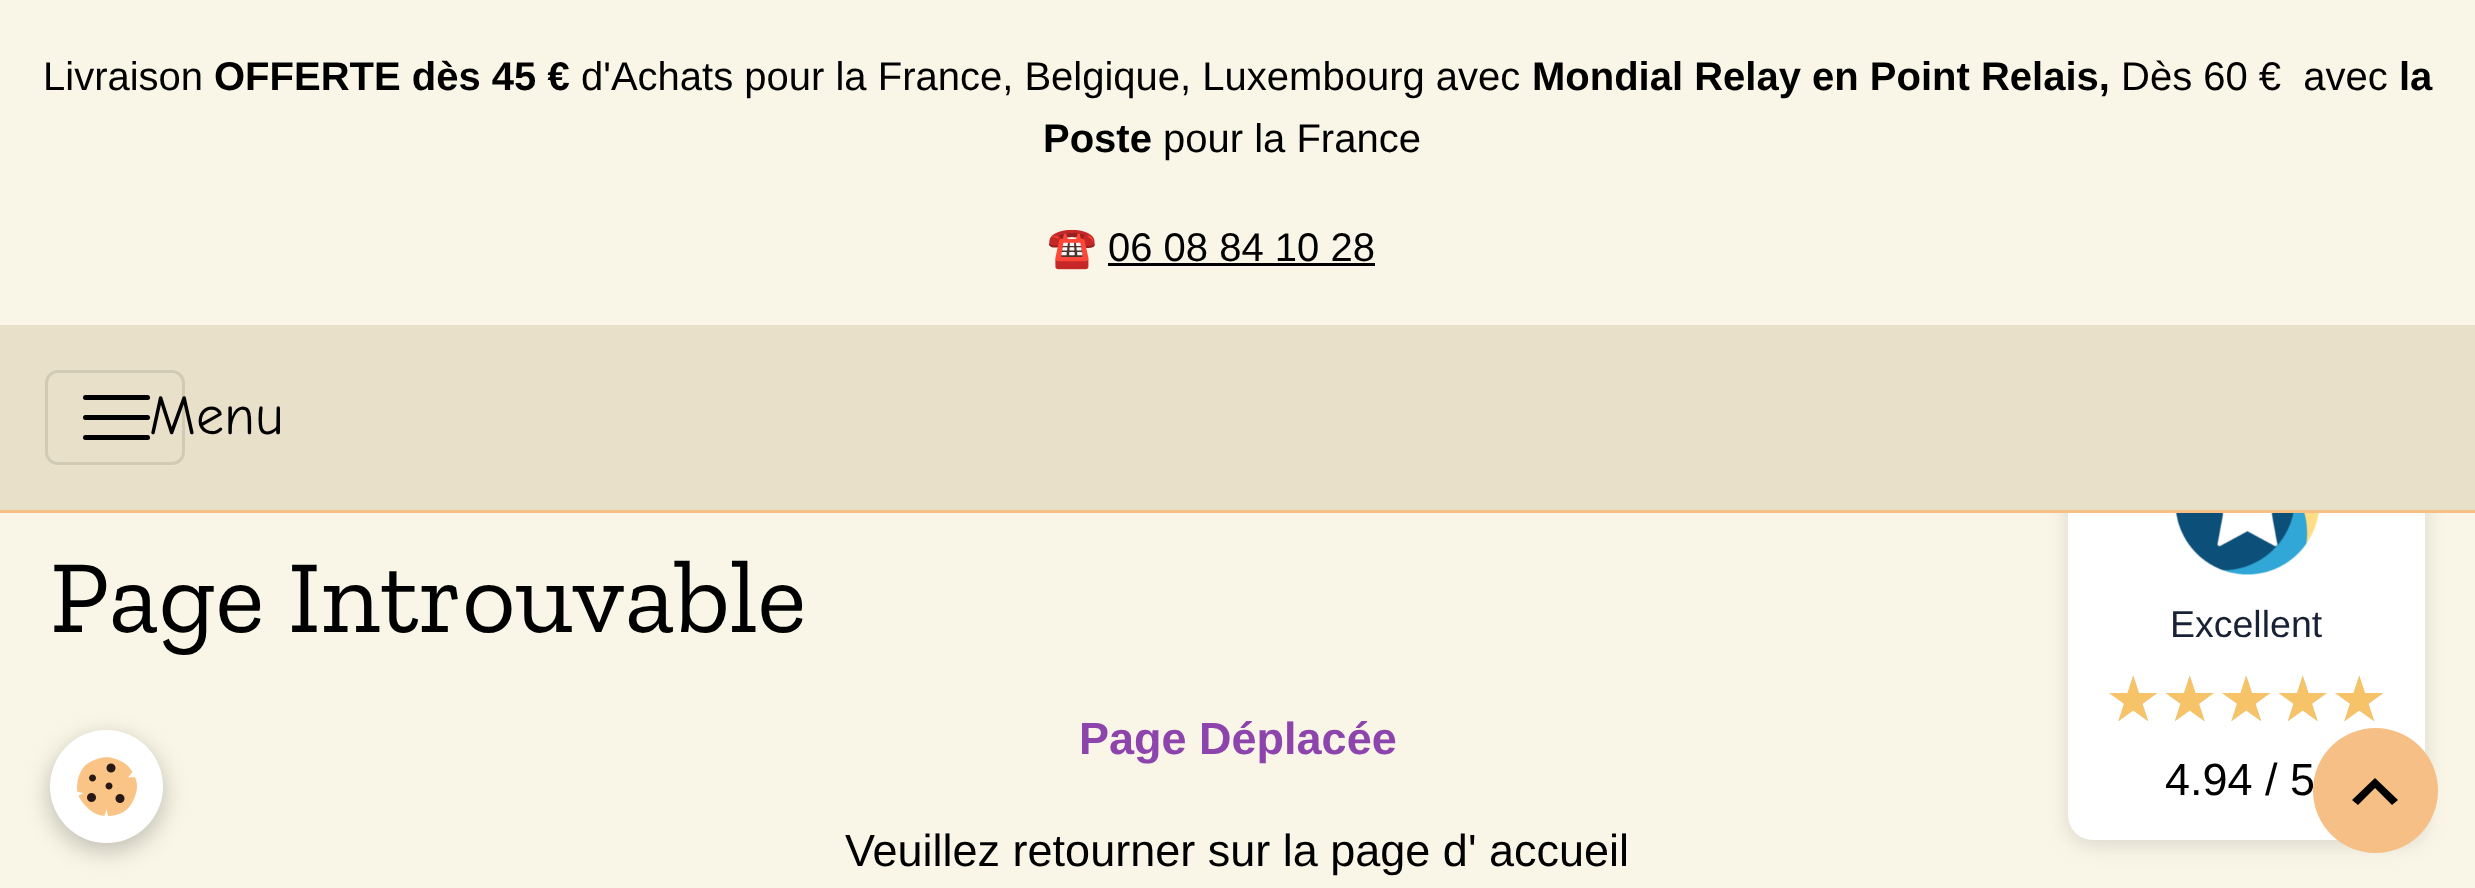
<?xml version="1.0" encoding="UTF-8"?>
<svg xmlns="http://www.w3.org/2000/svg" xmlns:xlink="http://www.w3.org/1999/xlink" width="2475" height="888">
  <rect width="100%" height="100%" fill="#f9f6e7" />
  <rect x="1108" y="263" width="267" height="3" fill="#000000" />
  <rect x="2068" y="410" width="357" height="435" rx="25" fill="#636363" fill-opacity="0.2" filter="blur(10px)" />
  <rect x="2068" y="405" width="357" height="435" rx="25" fill="#ffffff" />
  <rect y="325" width="2475" height="185" fill="#e8e0c9" />
  <rect y="510" width="2475" height="3" fill="#f6bf85" />
  <rect x="46.5" y="371.5" width="137" height="92" rx="11.5" fill="none" stroke="#d1cab5" stroke-width="3" />
  <rect x="83" y="395" width="67" height="5" rx="2.5" fill="#000000" />
  <rect x="83" y="415" width="67" height="5" rx="2.5" fill="#000000" />
  <rect x="83" y="435" width="67" height="5" rx="2.5" fill="#000000" />
  <image x="2174" y="513" width="146" height="62" xlink:href="image1.png" />
  <rect x="50" y="738" width="113" height="112" rx="56" fill="#000000" fill-opacity="0.24" filter="blur(12.5px)" />
  <circle cx="106.5" cy="786.5" r="56.5" fill="#ffffff" />
  <image x="77" y="757" width="60" height="59" xlink:href="image2.png" />
  <text x="43" y="90" style="font-family: Liberation Sans; font-size: 40px; fill: #000000">Livraison</text>
  <text x="214" y="90" style="font-family: Liberation Sans; font-size: 40px; font-weight: bold; fill: #000000">OFFERTE dès 45 €</text>
  <text x="581" y="90" style="font-family: Liberation Sans; font-size: 40px; fill: #000000">d'Achats pour la France, Belgique, Luxembourg avec</text>
  <text x="1532" y="90" style="font-family: Liberation Sans; font-size: 40px; font-weight: bold; fill: #000000">Mondial Relay en Point Relais,</text>
  <text x="2121" y="90" style="font-family: Liberation Sans; font-size: 40px; fill: #000000" xml:space="preserve">Dès 60 €  avec</text>
  <text x="2399" y="90" style="font-family: Liberation Sans; font-size: 40px; font-weight: bold; fill: #000000">la</text>
  <text x="1043" y="152" style="font-family: Liberation Sans; font-size: 40px; font-weight: bold; fill: #000000">Poste</text>
  <text x="1163" y="152" style="font-family: Liberation Sans; font-size: 40px; fill: #000000">pour la France</text>
  <text x="1047" y="261" style="font-family: Noto Color Emoji; font-size: 40px; fill: #000000">☎️</text>
  <text x="1108" y="261" style="font-family: Liberation Sans; font-size: 40px; fill: #000000">06 08 84 10 28</text>
  <text x="149" y="434" style="font-family: Comic Neue; font-size: 56px; fill: #000000">Menu</text>
  <text x="50" y="632" style="font-family: Zilla Slab; font-size: 103.5px; fill: #000000">Page Introuvable</text>
  <text x="1079" y="754" style="font-family: Liberation Sans; font-size: 45px; font-weight: bold; fill: #8e44ad">Page Déplacée</text>
  <text x="845" y="866" style="font-family: Liberation Sans; font-size: 45px; fill: #000000">Veuillez retourner sur la page d' accueil</text>
  <text x="2170" y="637" style="font-family: Liberation Sans; font-size: 37.5px; fill: #182135">Excellent</text>
  <text x="2105" y="721" style="font-family: DejaVu Sans; font-size: 63px; fill: #dedede">★★★★★</text>
  <text x="2105" y="721" style="font-family: DejaVu Sans; font-size: 63px; fill: #f7c368">★★★★★</text>
  <text x="2165" y="795" style="font-family: Liberation Sans; font-size: 45px; fill: #000000">4.94 / 5</text>
  <circle cx="2375.5" cy="790.5" r="62.5" fill="#f6bf85" />
  <path d="M 2375 778 l 23 22 l -6 5 l -17 -17 l -17 17 l -6 -5 z" fill="#000000" />
</svg>
